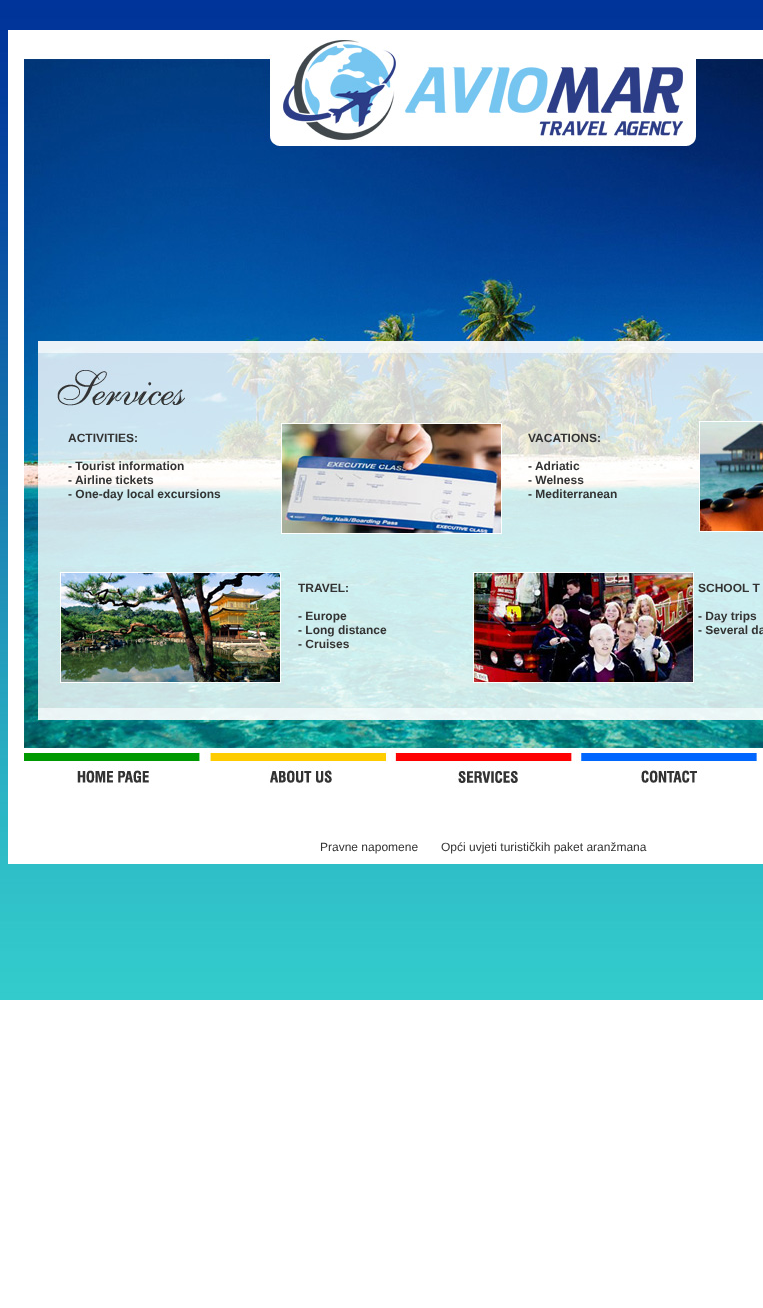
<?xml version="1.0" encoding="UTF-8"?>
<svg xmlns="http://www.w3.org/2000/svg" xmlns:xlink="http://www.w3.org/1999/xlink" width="763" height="1308">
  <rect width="100%" height="100%" fill="#ffffff" />
  <image x="0" y="0" width="763" height="1000" xlink:href="image1.png" />
  <image x="8" y="30" width="755" height="311" xlink:href="image2.png" />
  <image x="8" y="341" width="755" height="407" xlink:href="image3.png" />
  <image x="8" y="748" width="196" height="82" xlink:href="image4.png" />
  <image x="204" y="748" width="187" height="82" xlink:href="image5.png" />
  <image x="391" y="748" width="185" height="82" xlink:href="image6.png" />
  <image x="576" y="748" width="185" height="82" xlink:href="image7.png" />
  <rect x="761" y="748" width="2" height="82" fill="#ffffff" />
  <rect x="8" y="830" width="755" height="34" fill="#ffffff" />
  <text x="68" y="442" style="font-family: Liberation Sans; font-size: 12px; font-weight: bold; fill: #333333">ACTIVITIES:</text>
  <text x="68" y="470" style="font-family: Liberation Sans; font-size: 12px; font-weight: bold; fill: #333333">- Tourist information</text>
  <text x="68" y="484" style="font-family: Liberation Sans; font-size: 12px; font-weight: bold; fill: #333333">- Airline tickets</text>
  <text x="68" y="498" style="font-family: Liberation Sans; font-size: 12px; font-weight: bold; fill: #333333">- One-day local excursions</text>
  <text x="528" y="442" style="font-family: Liberation Sans; font-size: 12px; font-weight: bold; fill: #333333">VACATIONS:</text>
  <text x="528" y="470" style="font-family: Liberation Sans; font-size: 12px; font-weight: bold; fill: #333333">- Adriatic</text>
  <text x="528" y="484" style="font-family: Liberation Sans; font-size: 12px; font-weight: bold; fill: #333333">- Welness</text>
  <text x="528" y="498" style="font-family: Liberation Sans; font-size: 12px; font-weight: bold; fill: #333333">- Mediterranean</text>
  <text x="298" y="592" style="font-family: Liberation Sans; font-size: 12px; font-weight: bold; fill: #333333">TRAVEL:</text>
  <text x="298" y="620" style="font-family: Liberation Sans; font-size: 12px; font-weight: bold; fill: #333333">- Europe</text>
  <text x="298" y="634" style="font-family: Liberation Sans; font-size: 12px; font-weight: bold; fill: #333333">- Long distance</text>
  <text x="298" y="648" style="font-family: Liberation Sans; font-size: 12px; font-weight: bold; fill: #333333">- Cruises</text>
  <text x="698" y="592" style="font-family: Liberation Sans; font-size: 12px; font-weight: bold; fill: #333333">SCHOOL T</text>
  <text x="698" y="620" style="font-family: Liberation Sans; font-size: 12px; font-weight: bold; fill: #333333">- Day trips</text>
  <text x="698" y="634" style="font-family: Liberation Sans; font-size: 12px; font-weight: bold; fill: #333333">- Several da</text>
  <text x="320" y="851" style="font-family: Liberation Sans; font-size: 12px; fill: #333333">Pravne napomene</text>
  <text x="441" y="851" style="font-family: Liberation Sans; font-size: 12px; fill: #333333">Opći uvjeti turističkih paket aranžmana</text>
</svg>
